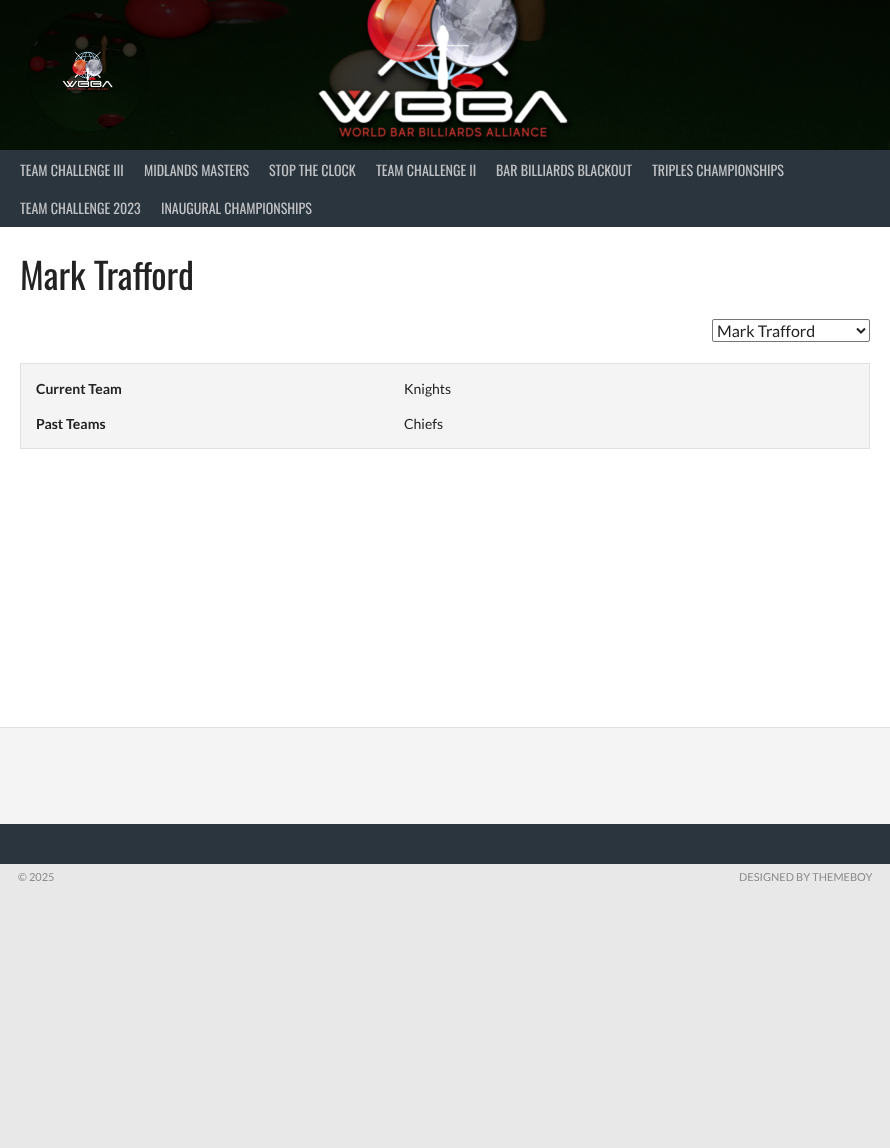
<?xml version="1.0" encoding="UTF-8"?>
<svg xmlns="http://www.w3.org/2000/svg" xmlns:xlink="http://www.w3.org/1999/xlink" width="890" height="1148">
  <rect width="100%" height="100%" fill="#e8e8e8" />
  <image x="0" y="0" width="890" height="150" xlink:href="image1.png" />
  <image x="28" y="12" width="120" height="120" xlink:href="image2.png" />
  <rect y="150" width="890" height="77" fill="#2b353e" />
  <rect y="227" width="890" height="500" fill="#ffffff" />
  <rect x="712.5" y="319.5" width="157" height="22" rx="1.5" fill="none" stroke="#767676" />
  <path d="M 857 328.5 l 4 4 l 4 -4" fill="none" stroke="#222222" stroke-width="2" />
  <rect x="20.5" y="363.5" width="849" height="85" fill="#f4f4f4" stroke="#e0e0e0" />
  <rect y="728" width="890" height="96" fill="#f4f4f4" />
  <rect y="727" width="890" height="1" fill="#e0e0e0" />
  <rect y="824" width="890" height="40" fill="#2b353e" />
  <text x="20" y="176" style="font-family: Oswald; font-size: 14px; fill: #bfc2c5">TEAM CHALLENGE III</text>
  <text x="144" y="176" style="font-family: Oswald; font-size: 14px; fill: #bfc2c5">MIDLANDS MASTERS</text>
  <text x="269" y="176" style="font-family: Oswald; font-size: 14px; fill: #bfc2c5">STOP THE CLOCK</text>
  <text x="376" y="176" style="font-family: Oswald; font-size: 14px; fill: #bfc2c5">TEAM CHALLENGE II</text>
  <text x="496" y="176" style="font-family: Oswald; font-size: 14px; fill: #bfc2c5">BAR BILLIARDS BLACKOUT</text>
  <text x="652" y="176" style="font-family: Oswald; font-size: 14px; fill: #bfc2c5">TRIPLES CHAMPIONSHIPS</text>
  <text x="20" y="214" style="font-family: Oswald; font-size: 14px; fill: #bfc2c5">TEAM CHALLENGE 2023</text>
  <text x="161" y="214" style="font-family: Oswald; font-size: 14px; fill: #bfc2c5">INAUGURAL CHAMPIONSHIPS</text>
  <text x="20" y="290" style="font-family: Oswald; font-size: 36px; fill: #222222">Mark Trafford</text>
  <text x="717" y="337" style="font-family: Lato; font-size: 16px; fill: #222222">Mark Trafford</text>
  <text x="36" y="394" style="font-family: Lato; font-size: 14px; font-weight: bold; fill: #222222">Current Team</text>
  <text x="404" y="394" style="font-family: Lato; font-size: 14px; fill: #222222">Knights</text>
  <text x="36" y="429" style="font-family: Lato; font-size: 14px; font-weight: bold; fill: #222222">Past Teams</text>
  <text x="404" y="429" style="font-family: Lato; font-size: 14px; fill: #222222">Chiefs</text>
  <text x="18" y="881" style="font-family: Lato; font-size: 11px; fill: #8b8b8b">© 2025</text>
  <text x="739" y="881" style="font-family: Lato; font-size: 11px; fill: #8b8b8b">DESIGNED BY THEMEBOY</text>
</svg>
